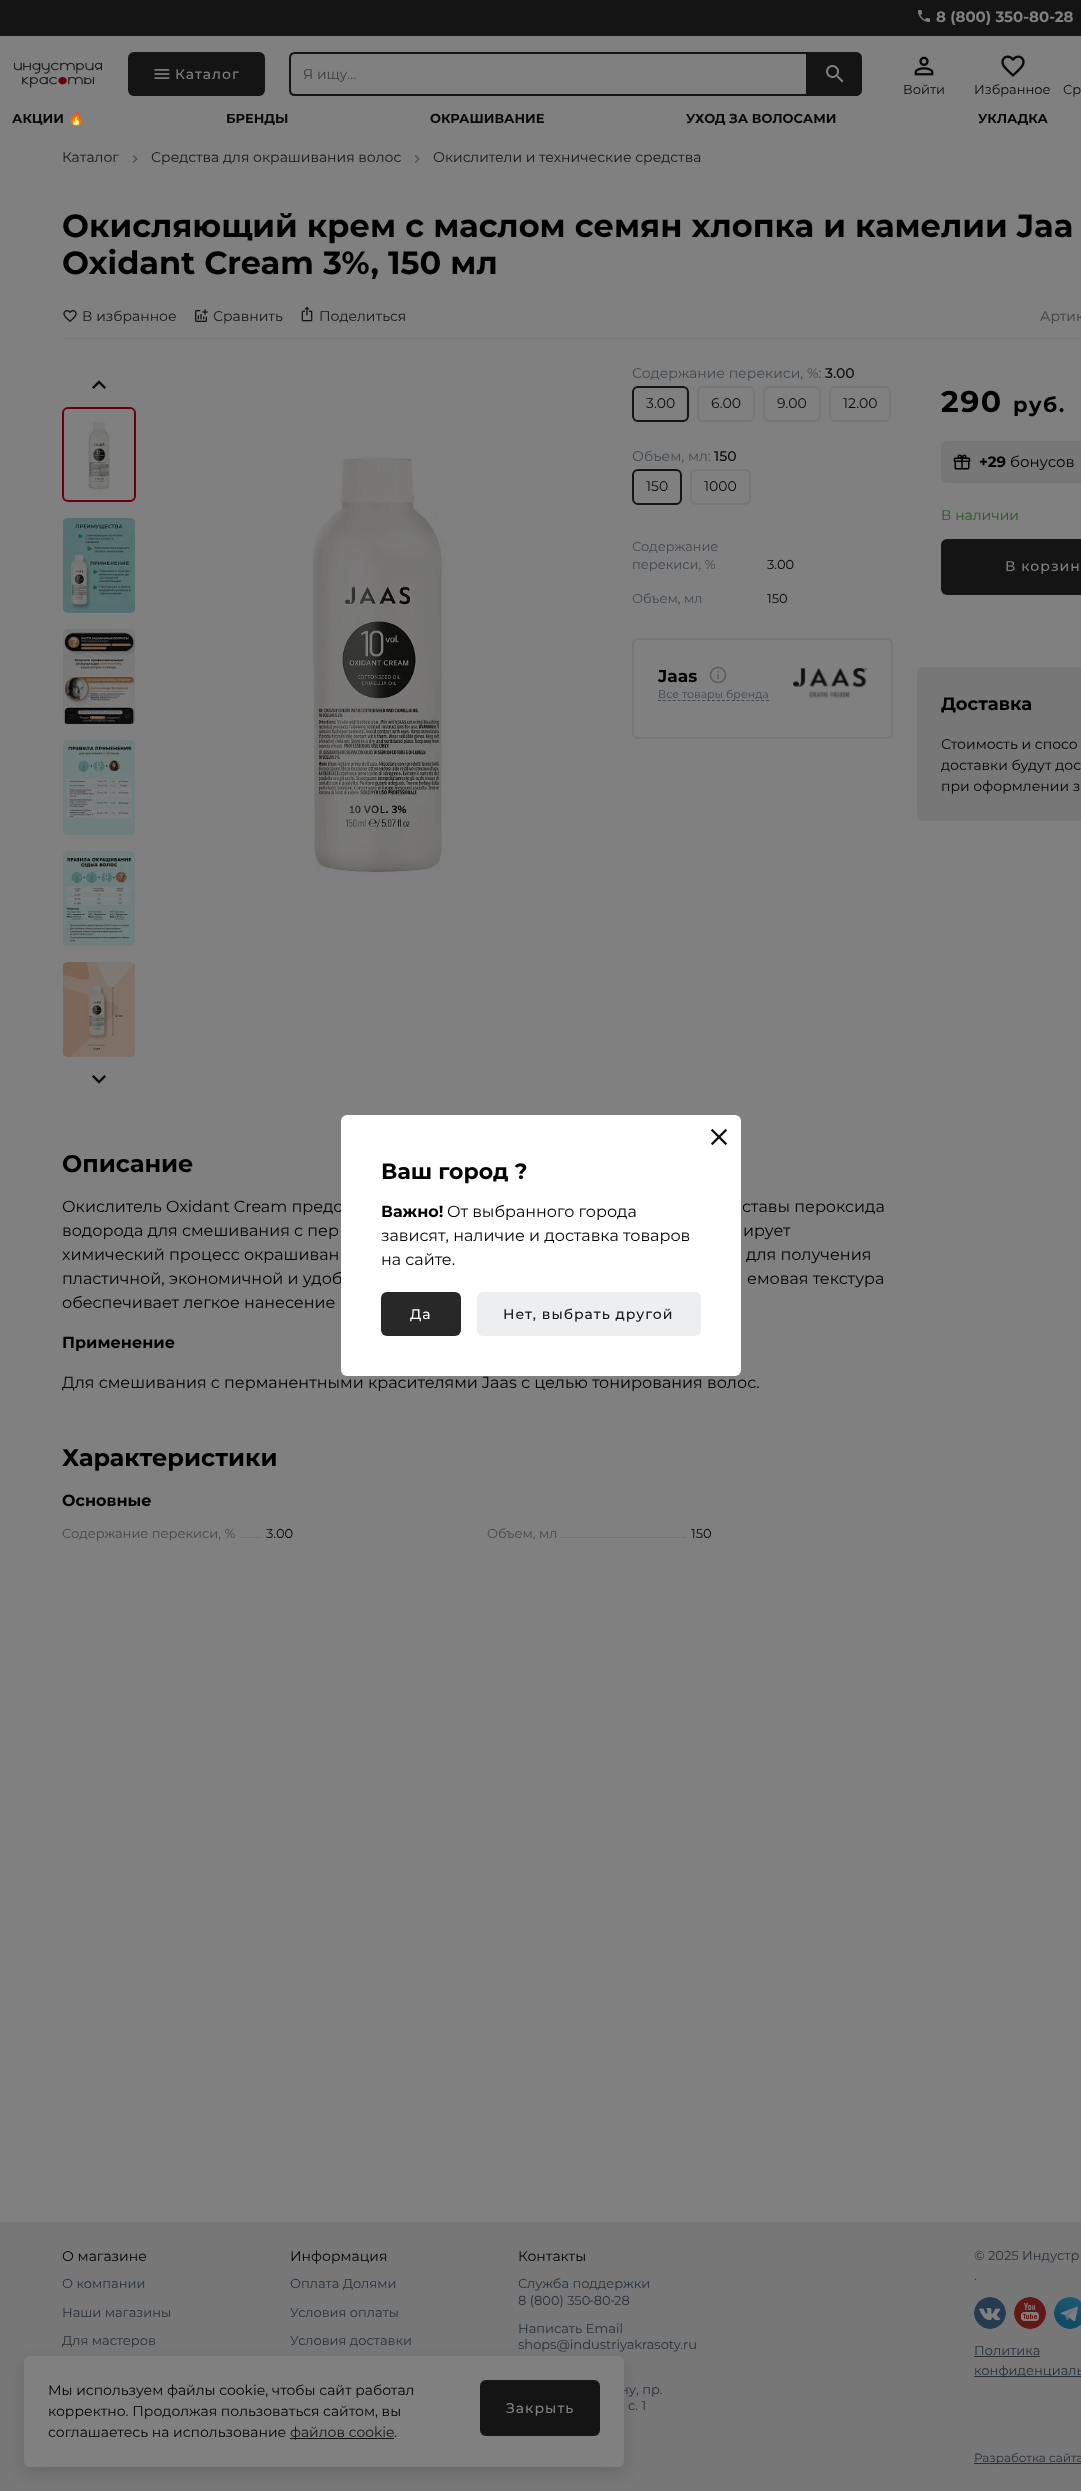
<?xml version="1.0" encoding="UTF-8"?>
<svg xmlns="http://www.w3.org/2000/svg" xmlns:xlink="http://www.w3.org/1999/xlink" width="1081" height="2491">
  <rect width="100%" height="100%" fill="#808080" />
  <rect width="1081" height="36" fill="#141414" />
  <image x="918" y="10" width="12" height="12" xlink:href="image1.png" />
  <image x="14" y="62" width="88" height="26" xlink:href="image2.png" />
  <rect x="128" y="52" width="137" height="44" rx="6" fill="#141414" />
  <image x="154" y="69" width="16" height="10" xlink:href="image3.png" />
  <path d="M 295 53 h 512 v 42 h -512 c -3 0 -5 -2 -5 -5 v -32 c 0 -3 2 -5 5 -5 z" fill="none" stroke="#141414" stroke-width="2" />
  <path d="M 808 52 h 48 c 3.5 0 6 2.5 6 6 v 32 c 0 3.5 -2.5 6 -6 6 h -48 z" fill="#141414" />
  <image x="826" y="65" width="18" height="18" xlink:href="image4.png" />
  <image x="914" y="56" width="20" height="20" xlink:href="image5.png" />
  <image x="1001" y="55" width="24" height="22" xlink:href="image6.png" />
  <image x="132" y="155" width="6" height="8" xlink:href="image7.png" />
  <image x="414" y="155" width="6" height="8" xlink:href="image7.png" />
  <rect x="62" y="338" width="1019" height="1" fill="#757778" />
  <image x="63" y="310" width="14" height="13" xlink:href="image8.png" />
  <image x="195" y="309" width="13" height="13" xlink:href="image9.png" />
  <image x="301" y="306" width="12" height="16" xlink:href="image10.png" />
  <image x="92" y="380" width="14" height="9" xlink:href="image11.png" />
  <image x="87" y="421" width="23" height="70" xlink:href="image12.png" />
  <rect x="63" y="408" width="72" height="93" rx="5" fill="none" stroke="#6a000e" stroke-width="2" />
  <image x="63" y="518" width="72" height="95" xlink:href="image13.png" />
  <image x="63" y="629" width="72" height="95" xlink:href="image14.png" />
  <image x="63" y="740" width="72" height="95" xlink:href="image15.png" />
  <image x="63" y="851" width="72" height="95" xlink:href="image16.png" />
  <image x="63" y="962" width="72" height="95" xlink:href="image17.png" />
  <image x="92" y="1075" width="14" height="9" xlink:href="image18.png" />
  <image x="312" y="456" width="134" height="419" xlink:href="image19.png" />
  <rect x="633" y="387" width="55" height="34" rx="5" fill="none" stroke="#141414" stroke-width="2" />
  <rect x="698" y="387" width="56" height="34" rx="5" fill="none" stroke="#757778" stroke-width="2" />
  <rect x="764" y="387" width="56" height="34" rx="5" fill="none" stroke="#757778" stroke-width="2" />
  <rect x="830" y="387" width="60" height="34" rx="5" fill="none" stroke="#757778" stroke-width="2" />
  <rect x="633" y="470" width="48" height="34" rx="5" fill="none" stroke="#141414" stroke-width="2" />
  <rect x="691" y="470" width="59" height="34" rx="5" fill="none" stroke="#757778" stroke-width="2" />
  <rect x="633" y="639" width="259" height="99" rx="5" fill="none" stroke="#757778" stroke-width="2" />
  <image x="709" y="666" width="18" height="18" xlink:href="image20.png" />
  <path d="M 658 700.5 h 111" fill="none" stroke="#40474d" stroke-dasharray="3 1.91" />
  <image x="793" y="668" width="74" height="30" xlink:href="image21.png" />
  <rect x="941" y="441" width="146" height="42" rx="6" fill="#777778" />
  <image x="953" y="454" width="18" height="16" xlink:href="image22.png" />
  <rect x="941" y="539" width="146" height="56" rx="6" fill="#141414" />
  <rect x="917" y="667" width="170" height="154" rx="6" fill="#777778" />
  <path d="M 62 1537.5 h 200" fill="none" stroke="#6b6b6b" stroke-dasharray="1 1" />
  <rect x="62" y="1537" width="177" height="1" fill="#808080" />
  <path d="M 487 1537.5 h 200" fill="none" stroke="#6b6b6b" stroke-dasharray="1 1" />
  <rect x="487" y="1537" width="73" height="1" fill="#808080" />
  <rect y="2222" width="1081" height="269" fill="#777778" />
  <rect x="24" y="2362" width="600" height="111" rx="6" fill="#000000" fill-opacity="0.12" filter="blur(8px)" />
  <circle cx="990" cy="2313" r="16" fill="#808080" />
  <image x="974" y="2297" width="32" height="32" xlink:href="image24.png" />
  <circle cx="1030" cy="2313" r="16" fill="#808080" />
  <image x="1014" y="2297" width="32" height="32" xlink:href="image25.png" />
  <circle cx="1070" cy="2313" r="16" fill="#808080" />
  <image x="1054" y="2297" width="27" height="32" xlink:href="image26.png" />
  <rect x="974" y="2356" width="66" height="1" fill="#273039" />
  <rect x="974" y="2376" width="107" height="1" fill="#273039" />
  <rect x="974" y="2463" width="107" height="1" fill="#273039" />
  <text x="936" y="22" style="font-family: Montserrat; font-size: 15px; font-weight: bold; fill: #808080">8 (800) 350-80-28</text>
  <text x="175" y="79" style="font-family: Montserrat; font-size: 14px; font-weight: 500; letter-spacing: 1px; fill: #808080">Каталог</text>
  <text x="303" y="79" style="font-family: Montserrat; font-size: 14px; fill: #3c3c3c">Я ищу...</text>
  <text x="903" y="94" style="font-family: Montserrat; font-size: 13px; fill: #090909">Войти</text>
  <text x="974" y="94" style="font-family: Montserrat; font-size: 13px; fill: #090909">Избранное</text>
  <text x="1063" y="94" style="font-family: Montserrat; font-size: 13px; fill: #090909">Ср</text>
  <text x="12" y="123" style="font-family: Montserrat; font-size: 13px; font-weight: bold; fill: #090909">АКЦИИ</text>
  <text x="68" y="123" style="font-family: Noto Color Emoji; font-size: 13px; font-weight: bold; fill: #090909">🔥</text>
  <text x="226" y="123" style="font-family: Montserrat; font-size: 13px; font-weight: bold; fill: #090909">БРЕНДЫ</text>
  <text x="430" y="123" style="font-family: Montserrat; font-size: 13px; font-weight: bold; fill: #090909">ОКРАШИВАНИЕ</text>
  <text x="686" y="123" style="font-family: Montserrat; font-size: 13px; font-weight: bold; fill: #090909">УХОД ЗА ВОЛОСАМИ</text>
  <text x="978" y="123" style="font-family: Montserrat; font-size: 13px; font-weight: bold; fill: #090909">УКЛАДКА</text>
  <text x="62" y="162" style="font-family: Montserrat; font-size: 14px; fill: #141414">Каталог</text>
  <text x="151" y="162" style="font-family: Montserrat; font-size: 14px; fill: #141414">Средства для окрашивания волос</text>
  <text x="433" y="162" style="font-family: Montserrat; font-size: 14px; fill: #141414">Окислители и технические средства</text>
  <text x="62" y="237" style="font-family: Montserrat; font-size: 32px; font-weight: bold; fill: #000000">Окисляющий крем с маслом семян хлопка и камелии Jaa</text>
  <text x="62" y="274" style="font-family: Montserrat; font-size: 32px; font-weight: bold; fill: #000000">Oxidant Cream 3%, 150 мл</text>
  <text x="82" y="321" style="font-family: Montserrat; font-size: 14px; fill: #141414">В избранное</text>
  <text x="213" y="321" style="font-family: Montserrat; font-size: 14px; fill: #141414">Сравнить</text>
  <text x="319" y="321" style="font-family: Montserrat; font-size: 14px; fill: #141414">Поделиться</text>
  <text x="1040" y="321" style="font-family: Montserrat; font-size: 14px; fill: #3c3c3c">Артик</text>
  <text x="632" y="378" style="font-family: Montserrat; font-size: 14px; fill: #40474d">Содержание перекиси, %:</text>
  <text x="825" y="378" style="font-family: Montserrat; font-size: 14px; font-weight: 500; fill: #090909">3.00</text>
  <text x="646" y="408" style="font-family: Montserrat; font-size: 14px; fill: #090909">3.00</text>
  <text x="711" y="408" style="font-family: Montserrat; font-size: 14px; fill: #090909">6.00</text>
  <text x="777" y="408" style="font-family: Montserrat; font-size: 14px; fill: #090909">9.00</text>
  <text x="843" y="408" style="font-family: Montserrat; font-size: 14px; fill: #090909">12.00</text>
  <text x="632" y="461" style="font-family: Montserrat; font-size: 14px; fill: #40474d">Объем, мл:</text>
  <text x="714" y="461" style="font-family: Montserrat; font-size: 14px; font-weight: 500; fill: #090909">150</text>
  <text x="646" y="491" style="font-family: Montserrat; font-size: 14px; fill: #090909">150</text>
  <text x="704" y="491" style="font-family: Montserrat; font-size: 14px; fill: #090909">1000</text>
  <text x="632" y="551" style="font-family: Montserrat; font-size: 13px; fill: #40474d">Содержание</text>
  <text x="632" y="569" style="font-family: Montserrat; font-size: 13px; fill: #40474d">перекиси, %</text>
  <text x="767" y="569" style="font-family: Montserrat; font-size: 13px; fill: #000000">3.00</text>
  <text x="632" y="603" style="font-family: Montserrat; font-size: 13px; fill: #40474d">Объем, мл</text>
  <text x="767" y="603" style="font-family: Montserrat; font-size: 13px; fill: #000000">150</text>
  <text x="658" y="682" style="font-family: Montserrat; font-size: 17px; font-weight: bold; fill: #000000">Jaas</text>
  <text x="658" y="698" style="font-family: Montserrat; font-size: 11px; fill: #40474d">Все товары бренда</text>
  <text x="941" y="412" style="font-family: Montserrat; font-size: 30px; font-weight: bold; letter-spacing: 1.5px; fill: #000000">290</text>
  <text x="1013" y="412" style="font-family: Montserrat; font-size: 21px; font-weight: bold; letter-spacing: 1.5px; fill: #000000">руб.</text>
  <text x="979" y="467" style="font-family: Montserrat; font-size: 15px; font-weight: bold; fill: #000000">+29</text>
  <text x="1010" y="467" style="font-family: Montserrat; font-size: 15px; fill: #000000">бонусов</text>
  <text x="941" y="520" style="font-family: Montserrat; font-size: 14px; fill: #295521">В наличии</text>
  <text x="1005" y="571" style="font-family: Montserrat; font-size: 14px; font-weight: 500; letter-spacing: 1px; fill: #808080">В корзин</text>
  <text x="941" y="710" style="font-family: Montserrat; font-size: 18px; font-weight: bold; fill: #000000">Доставка</text>
  <text x="941" y="749" style="font-family: Montserrat; font-size: 14px; fill: #000000">Стоимость и спосо</text>
  <text x="941" y="770" style="font-family: Montserrat; font-size: 14px; fill: #000000">доставки будут дос</text>
  <text x="941" y="791" style="font-family: Montserrat; font-size: 14px; fill: #000000">при оформлении з</text>
  <text x="62" y="1172" style="font-family: Montserrat; font-size: 24px; font-weight: bold; fill: #000000">Описание</text>
  <text x="62" y="1212" style="font-family: Montserrat; font-size: 16px; fill: #000000">Окислитель Oxidant Cream предс</text>
  <text x="742" y="1212" style="font-family: Montserrat; font-size: 16px; fill: #000000">ставы пероксида</text>
  <text x="62" y="1236" style="font-family: Montserrat; font-size: 16px; fill: #000000">водорода для смешивания с пер</text>
  <text x="743" y="1236" style="font-family: Montserrat; font-size: 16px; fill: #000000">ирует</text>
  <text x="62" y="1260" style="font-family: Montserrat; font-size: 16px; fill: #000000">химический процесс окрашиван</text>
  <text x="746" y="1260" style="font-family: Montserrat; font-size: 16px; fill: #000000">для получения</text>
  <text x="62" y="1284" style="font-family: Montserrat; font-size: 16px; fill: #000000">пластичной, экономичной и удоб</text>
  <text x="747" y="1284" style="font-family: Montserrat; font-size: 16px; fill: #000000">емовая текстура</text>
  <text x="62" y="1308" style="font-family: Montserrat; font-size: 16px; fill: #000000">обеспечивает легкое нанесение</text>
  <text x="62" y="1348" style="font-family: Montserrat; font-size: 16px; font-weight: bold; fill: #000000">Применение</text>
  <text x="62" y="1388" style="font-family: Montserrat; font-size: 16px; fill: #000000">Для смешивания с перманентными красителями Jaas с целью тонирования волос.</text>
  <text x="62" y="1466" style="font-family: Montserrat; font-size: 24px; font-weight: bold; fill: #000000">Характеристики</text>
  <text x="62" y="1506" style="font-family: Montserrat; font-size: 16px; font-weight: bold; fill: #000000">Основные</text>
  <text x="62" y="1538" style="font-family: Montserrat; font-size: 13px; fill: #40474d">Содержание перекиси, %</text>
  <text x="266" y="1538" style="font-family: Montserrat; font-size: 13px; fill: #000000">3.00</text>
  <text x="487" y="1538" style="font-family: Montserrat; font-size: 13px; fill: #40474d">Объем, мл</text>
  <text x="691" y="1538" style="font-family: Montserrat; font-size: 13px; fill: #000000">150</text>
  <rect x="341" y="1115" width="400" height="261" rx="6" fill="#ffffff" />
  <image x="710" y="1128" width="18" height="18" xlink:href="image23.png" />
  <text x="381" y="1179" style="font-family: Montserrat; font-size: 22px; font-weight: bold; fill: #000000">Ваш город ?</text>
  <text x="381" y="1217" style="font-family: Montserrat; font-size: 16px; font-weight: bold; fill: #000000">Важно!</text>
  <text x="447" y="1217" style="font-family: Montserrat; font-size: 16px; fill: #000000">От выбранного города</text>
  <text x="381" y="1241" style="font-family: Montserrat; font-size: 16px; fill: #000000">зависят, наличие и доставка товаров</text>
  <text x="381" y="1265" style="font-family: Montserrat; font-size: 16px; fill: #000000">на сайте.</text>
  <rect x="381" y="1292" width="80" height="44" rx="6" fill="#282828" />
  <text x="410" y="1319" style="font-family: Montserrat; font-size: 14px; font-weight: 500; letter-spacing: 1px; fill: #ffffff">Да</text>
  <rect x="477" y="1292" width="224" height="44" rx="6" fill="#edeef0" />
  <text x="503" y="1319" style="font-family: Montserrat; font-size: 14px; font-weight: 500; letter-spacing: 1px; fill: #141414">Нет, выбрать другой</text>
  <text x="62" y="2261" style="font-family: Montserrat; font-size: 14px; fill: #000000">О магазине</text>
  <text x="62" y="2288" style="font-family: Montserrat; font-size: 13px; fill: #273039">О компании</text>
  <text x="62" y="2317" style="font-family: Montserrat; font-size: 13px; fill: #273039">Наши магазины</text>
  <text x="62" y="2345" style="font-family: Montserrat; font-size: 13px; fill: #273039">Для мастеров</text>
  <text x="290" y="2261" style="font-family: Montserrat; font-size: 14px; fill: #000000">Информация</text>
  <text x="290" y="2288" style="font-family: Montserrat; font-size: 13px; fill: #273039">Оплата Долями</text>
  <text x="290" y="2317" style="font-family: Montserrat; font-size: 13px; fill: #273039">Условия оплаты</text>
  <text x="290" y="2345" style="font-family: Montserrat; font-size: 13px; fill: #273039">Условия доставки</text>
  <text x="518" y="2261" style="font-family: Montserrat; font-size: 14px; fill: #000000">Контакты</text>
  <text x="518" y="2288" style="font-family: Montserrat; font-size: 13px; fill: #273039">Служба поддержки</text>
  <text x="518" y="2305" style="font-family: Montserrat; font-size: 13px; fill: #273039">8 (800) 350 80</text>
  <text x="590" y="2305" style="font-family: Roboto; font-size: 13px; fill: #273039">‑</text>
  <text x="611" y="2305" style="font-family: Roboto; font-size: 13px; fill: #273039">‑</text>
  <text x="614" y="2305" style="font-family: Montserrat; font-size: 13px; fill: #273039">28</text>
  <text x="518" y="2333" style="font-family: Montserrat; font-size: 13px; fill: #273039">Написать Email</text>
  <text x="518" y="2349" style="font-family: Montserrat; font-size: 13px; fill: #273039">shops@industriyakrasoty.ru</text>
  <text x="620" y="2394" style="font-family: Montserrat; font-size: 13px; fill: #273039">ну, пр.</text>
  <rect x="24" y="2356" width="600" height="111" rx="6" fill="#808080" />
  <rect x="480" y="2380" width="120" height="56" rx="6" fill="#141414" />
  <text x="506" y="2413" style="font-family: Montserrat; font-size: 14px; font-weight: 500; letter-spacing: 1px; fill: #808080">Закрыть</text>
  <text x="394" y="2437" style="font-family: Montserrat; font-size: 14px; fill: #000000">.</text>
  <rect x="290" y="2438" width="104" height="1" fill="#141414" />
  <text x="290" y="2437" style="font-family: Montserrat; font-size: 14px; fill: #141414">файлов cookie</text>
  <text x="48" y="2437" style="font-family: Montserrat; font-size: 14px; fill: #000000">соглашаетесь на использование</text>
  <text x="48" y="2416" style="font-family: Montserrat; font-size: 14px; fill: #000000">корректно. Продолжая пользоваться сайтом, вы</text>
  <text x="48" y="2395" style="font-family: Montserrat; font-size: 14px; fill: #000000">Мы используем файлы cookie, чтобы сайт работал</text>
  <text x="628" y="2410" style="font-family: Montserrat; font-size: 13px; fill: #273039">с. 1</text>
  <text x="974" y="2260" style="font-family: Montserrat; font-size: 13px; fill: #273039">© 2025 Индустр</text>
  <text x="974" y="2280" style="font-family: Montserrat; font-size: 13px; fill: #273039">.</text>
  <text x="974" y="2355" style="font-family: Montserrat; font-size: 13px; fill: #273039">Политика</text>
  <text x="974" y="2375" style="font-family: Montserrat; font-size: 13px; fill: #273039">конфиденциаль</text>
  <text x="974" y="2462" style="font-family: Montserrat; font-size: 12px; fill: #273039">Разработка сайта</text>
</svg>
